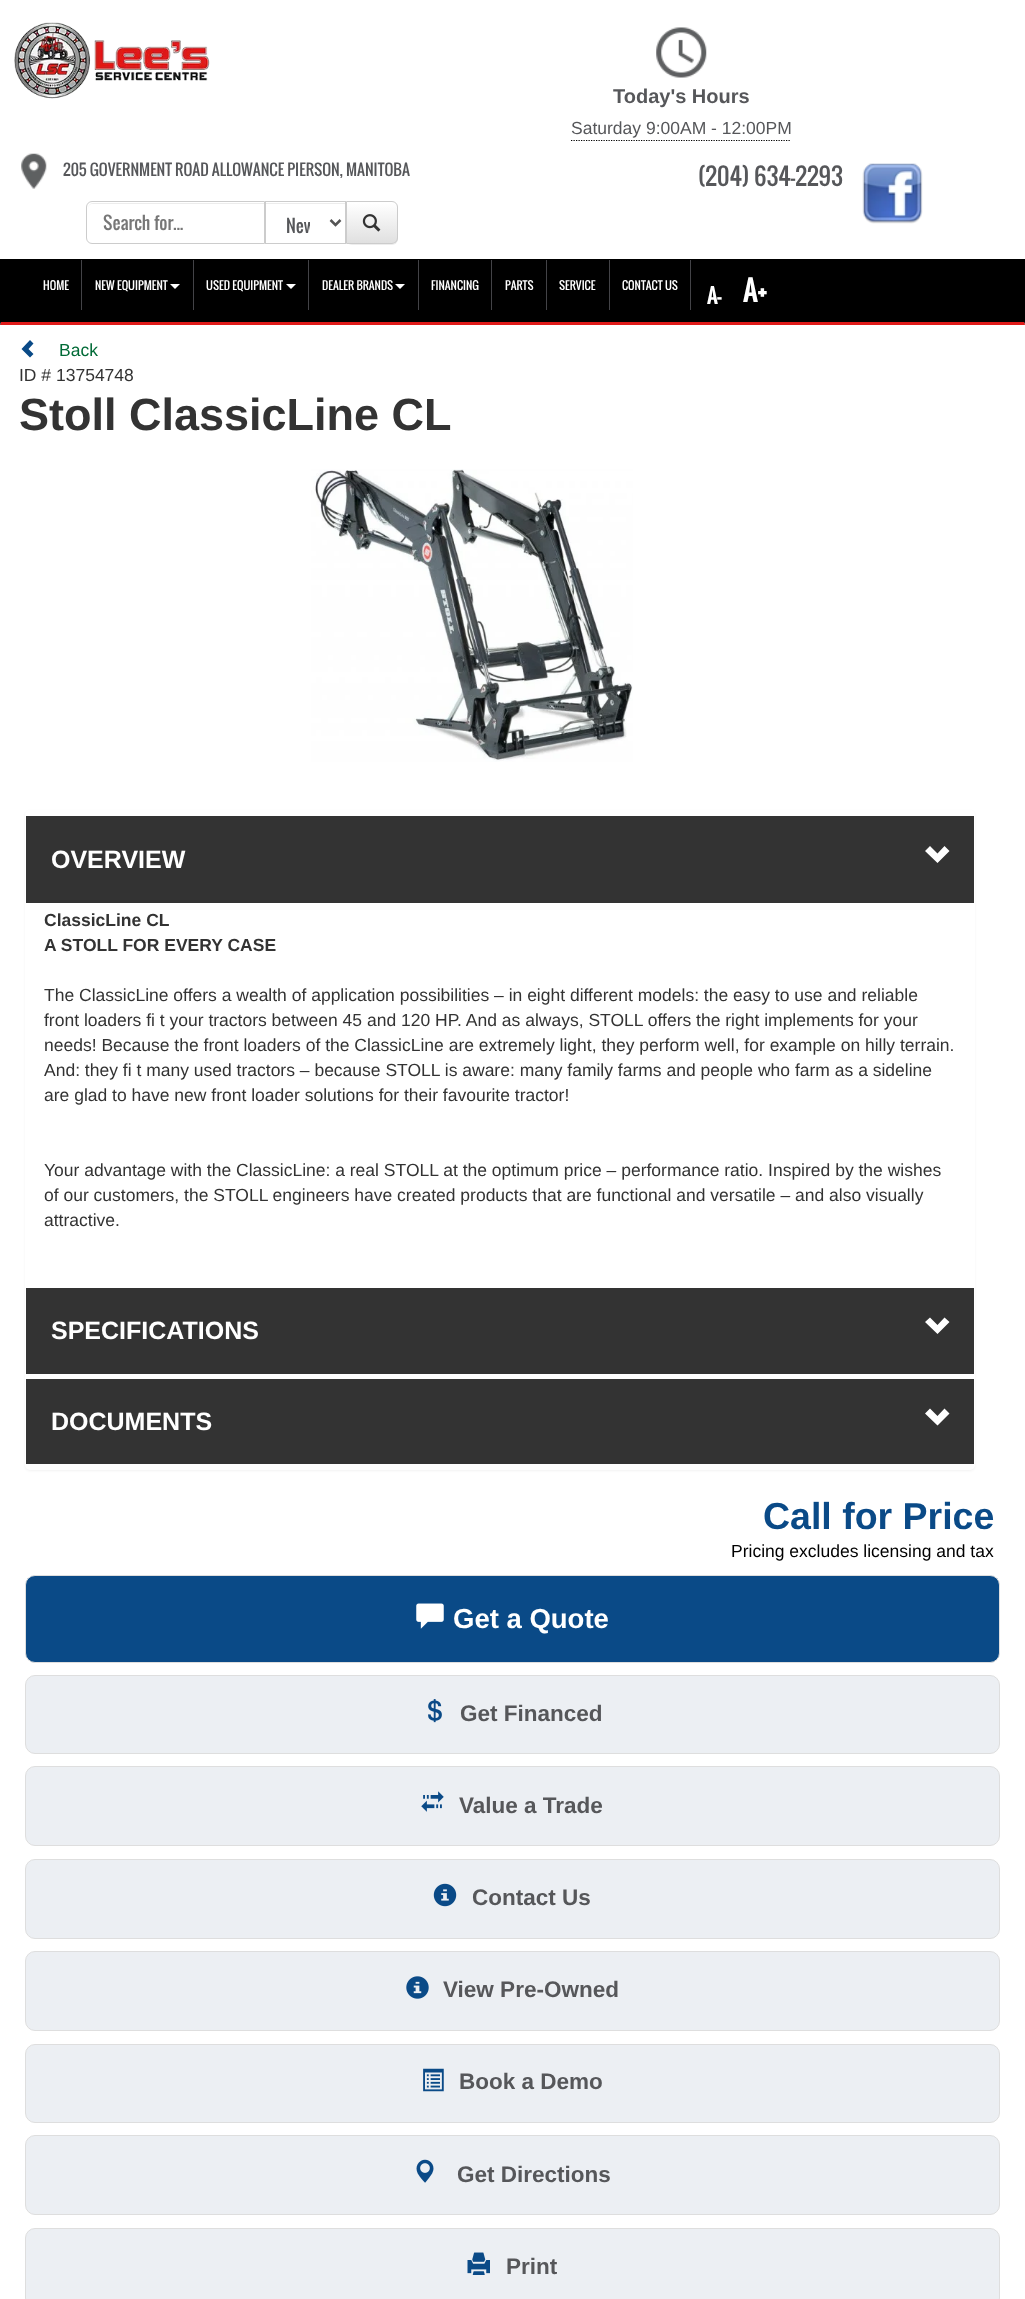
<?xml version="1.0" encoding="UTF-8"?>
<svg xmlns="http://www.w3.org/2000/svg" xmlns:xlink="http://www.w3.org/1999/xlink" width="1025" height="2299">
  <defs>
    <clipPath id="clip1"><path d="M 346 201 h 46 c 3.5 0 6 2.5 6 6 v 31 c 0 3.5 -2.5 6 -6 6 h -46 z" /></clipPath>
    <linearGradient id="g1" gradientUnits="userSpaceOnUse" x1="372" y1="203" x2="372" y2="243"><stop offset="0" stop-color="#ffffff" /><stop offset="1" stop-color="#e0e0e0" /></linearGradient>
    <clipPath id="clip2"><rect x="286" y="210" width="24" height="30" /></clipPath>
  </defs>
  <rect width="100%" height="100%" fill="#ffffff" />
  <image x="14" y="22" width="196" height="77" xlink:href="image1.png" />
  <path d="M 571 140.5 h 220" fill="none" stroke="#000000" stroke-width="1.2" stroke-dasharray="1.25 1.25" />
  <image x="656" y="27" width="51" height="51" xlink:href="image2.png" />
  <image x="21" y="153" width="26" height="36" xlink:href="image3.png" />
  <path d="M 92 204 h 172 v -1 h -171 c -3 0 -5 3 -5 6 c 0 -3 2 -5 4 -5 z" fill="#ececec" />
  <path d="M 92 201.5 h 172.5 v 42 h -172.5 c -3 0 -5.5 -2.5 -5.5 -5.5 v -31 c 0 -3 2.5 -5.5 5.5 -5.5 z" fill="none" stroke="#cccccc" />
  <rect x="266" y="203" width="79" height="1" fill="#ececec" />
  <rect x="265.5" y="201.5" width="80" height="42" fill="none" stroke="#cccccc" />
  <path d="M 330.5 220 l 5 5 l 5 -5" fill="none" stroke="#555555" stroke-width="2.5" />
  <rect x="346" y="203" width="52" height="42" rx="6" fill="#000000" fill-opacity="0.07" filter="blur(0.5px)" />
  <path d="M 346 201 h 46 c 3.5 0 6 2.5 6 6 v 31 c 0 3.5 -2.5 6 -6 6 h -46 z" fill="#ffffff" />
  <g clip-path="url(#clip1)">
    <rect x="347" y="203" width="51" height="40" fill="url(#g1)" />
  </g>
  <path d="M 346.5 201.5 h 45.5 c 3 0 5.5 2.5 5.5 5.5 v 31 c 0 3 -2.5 5.5 -5.5 5.5 h -45.5 z" fill="none" stroke="#cccccc" />
  <image x="362" y="214" width="19" height="18" xlink:href="image4.png" />
  <image x="862" y="163" width="61" height="61" xlink:href="image5.png" />
  <rect x="1" y="260" width="1023" height="62" fill="#000000" />
  <rect y="259" width="1025" height="1" fill="#000000" />
  <path d="M 1025 259 v 66 l -1 -3 v -62 z" fill="#000000" />
  <path d="M 1025 325 h -1025 l 1 -3 h 1023 z" fill="#e01a19" />
  <path d="M 0 325 v -66 l 1 1 v 62 z" fill="#000000" />
  <rect x="81" y="260" width="1" height="50" fill="#434347" />
  <rect x="193" y="260" width="1" height="50" fill="#434347" />
  <path d="M 170 284 h 10 l -5 5 z" fill="#ffffff" />
  <rect x="308" y="260" width="1" height="50" fill="#434347" />
  <path d="M 286 284 h 10 l -5 5 z" fill="#ffffff" />
  <rect x="418" y="260" width="1" height="50" fill="#434347" />
  <path d="M 395 284 h 10 l -5 5 z" fill="#ffffff" />
  <rect x="491" y="260" width="1" height="50" fill="#434347" />
  <rect x="546" y="260" width="1" height="50" fill="#434347" />
  <rect x="609" y="260" width="1" height="50" fill="#434347" />
  <rect x="690" y="260" width="1" height="50" fill="#434347" />
  <path d="M 21.5 349 l 8.5 8.5 l 3.5 -3.5 l -5 -5 l 5 -5.5 l -3.5 -3.5 z" fill="#0a4a87" />
  <image x="311" y="469" width="322" height="293" xlink:href="image6.png" />
  <rect x="25" y="811" width="950" height="660" rx="5" fill="#000000" fill-opacity="0.05" filter="blur(1px)" />
  <rect x="25" y="810" width="950" height="660" rx="5" fill="#ffffff" />
  <rect x="26" y="816" width="948" height="87" fill="#333333" />
  <path d="M 925 851 l 12.5 12 l 12 -12 l -5 -5 l -7 7.5 l -7.5 -7.5 z" fill="#ffffff" />
  <rect x="26" y="1288" width="948" height="86" fill="#333333" />
  <path d="M 925 1322 l 12.5 12 l 12 -12 l -5 -4.5 l -7 7.5 l -7.5 -7.5 z" fill="#ffffff" />
  <rect x="26" y="1379" width="948" height="85" fill="#333333" />
  <path d="M 925 1413.5 l 12.5 12 l 12 -12 l -5 -5 l -7 7.5 l -7.5 -7.5 z" fill="#ffffff" />
  <rect x="25.5" y="1575.5" width="974" height="87" rx="9.5" fill="#0a4a87" stroke="#dedede" />
  <image x="416" y="1603" width="28" height="26" xlink:href="image7.png" />
  <rect x="25.5" y="1675.5" width="974" height="78" rx="9.5" fill="#eceff3" stroke="#dedede" />
  <image x="428" y="1699" width="14" height="24" xlink:href="image8.png" />
  <rect x="25.5" y="1766.5" width="974" height="79" rx="9.5" fill="#eceff3" stroke="#dedede" />
  <image x="421" y="1791" width="23" height="21" xlink:href="image9.png" />
  <rect x="25.5" y="1859.5" width="974" height="79" rx="9.5" fill="#eceff3" stroke="#dedede" />
  <image x="433" y="1883" width="24" height="24" xlink:href="image10.png" />
  <rect x="25.5" y="1951.5" width="974" height="79" rx="9.5" fill="#eceff3" stroke="#dedede" />
  <image x="406" y="1976" width="23" height="23" xlink:href="image11.png" />
  <rect x="25.5" y="2044.5" width="974" height="78" rx="9.5" fill="#eceff3" stroke="#dedede" />
  <image x="423" y="2068" width="21" height="24" xlink:href="image12.png" />
  <rect x="25.5" y="2135.5" width="974" height="79" rx="9.5" fill="#eceff3" stroke="#dedede" />
  <image x="416" y="2159" width="18" height="24" xlink:href="image13.png" />
  <rect x="25.5" y="2228.5" width="974" height="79" rx="9.5" fill="#eceff3" stroke="#dedede" />
  <image x="467" y="2252" width="23" height="23" xlink:href="image14.png" />
  <text x="613" y="103" style="font-family: Liberation Sans; font-size: 20px; font-weight: bold; fill: #56575a">Today's Hours</text>
  <text x="571" y="134" style="font-family: Liberation Sans; font-size: 17.5px; fill: #56575a">Saturday 9:00AM - 12:00PM</text>
  <text x="63" y="176" style="font-family: Oswald; font-size: 15.4px; fill: #56575a">205 GOVERNMENT ROAD ALLOWANCE PIERSON, MANITOBA</text>
  <text x="103" y="230" style="font-family: Oswald; font-size: 17.5px; fill: #777777">Search for...</text>
  <g clip-path="url(#clip2)">
    <text x="286" y="233" style="font-family: Oswald; font-size: 17.5px; fill: #56575a">New</text>
  </g>
  <text x="698" y="186" style="font-family: Oswald; font-size: 23.5px; fill: #56575a">(204) 634-2293</text>
  <text x="43" y="290" style="font-family: Oswald; font-size: 11.25px; fill: #ffffff">HOME</text>
  <text x="95" y="290" style="font-family: Oswald; font-size: 11.25px; fill: #ffffff">NEW EQUIPMENT</text>
  <text x="206" y="290" style="font-family: Oswald; font-size: 11.25px; fill: #ffffff">USED EQUIPMENT</text>
  <text x="322" y="290" style="font-family: Oswald; font-size: 11.25px; fill: #ffffff">DEALER BRANDS</text>
  <text x="431" y="290" style="font-family: Oswald; font-size: 11.25px; fill: #ffffff">FINANCING</text>
  <text x="505" y="290" style="font-family: Oswald; font-size: 11.25px; fill: #ffffff">PARTS</text>
  <text x="559" y="290" style="font-family: Oswald; font-size: 11.25px; fill: #ffffff">SERVICE</text>
  <text x="622" y="290" style="font-family: Oswald; font-size: 11.25px; fill: #ffffff">CONTACT US</text>
  <text x="707" y="304" style="font-family: Oswald; font-size: 20px; font-weight: bold; fill: #ffffff">A-</text>
  <text x="743" y="302" style="font-family: Oswald; font-size: 27.5px; font-weight: bold; fill: #ffffff">A+</text>
  <text x="59" y="356" style="font-family: Liberation Sans; font-size: 17.5px; fill: #006a36">Back</text>
  <text x="19" y="381" style="font-family: Liberation Sans; font-size: 17.5px; fill: #333333">ID # 13754748</text>
  <text x="19" y="430" style="font-family: Liberation Sans; font-size: 45px; font-weight: bold; fill: #333333">Stoll ClassicLine CL</text>
  <text x="51" y="868" style="font-family: Liberation Sans; font-size: 25px; font-weight: bold; fill: #ffffff">OVERVIEW</text>
  <text x="44" y="926" style="font-family: Liberation Sans; font-size: 17.5px; font-weight: bold; fill: #333333">ClassicLine CL</text>
  <text x="44" y="951" style="font-family: Liberation Sans; font-size: 17.5px; font-weight: bold; fill: #333333">A STOLL FOR EVERY CASE</text>
  <text x="44" y="1001" style="font-family: Liberation Sans; font-size: 17.5px; fill: #333333">The ClassicLine offers a wealth of application possibilities – in eight different models: the easy to use and reliable</text>
  <text x="44" y="1026" style="font-family: Liberation Sans; font-size: 17.5px; fill: #333333">front loaders fi t your tractors between 45 and 120 HP. And as always, STOLL offers the right implements for your</text>
  <text x="44" y="1051" style="font-family: Liberation Sans; font-size: 17.5px; fill: #333333">needs! Because the front loaders of the ClassicLine are extremely light, they perform well, for example on hilly terrain.</text>
  <text x="44" y="1076" style="font-family: Liberation Sans; font-size: 17.5px; fill: #333333">And: they fi t many used tractors – because STOLL is aware: many family farms and people who farm as a sideline</text>
  <text x="44" y="1101" style="font-family: Liberation Sans; font-size: 17.5px; fill: #333333">are glad to have new front loader solutions for their favourite tractor!</text>
  <text x="44" y="1176" style="font-family: Liberation Sans; font-size: 17.5px; fill: #333333">Your advantage with the ClassicLine: a real STOLL at the optimum price – performance ratio. Inspired by the wishes</text>
  <text x="44" y="1201" style="font-family: Liberation Sans; font-size: 17.5px; fill: #333333">of our customers, the STOLL engineers have created products that are functional and versatile – and also visually</text>
  <text x="44" y="1226" style="font-family: Liberation Sans; font-size: 17.5px; fill: #333333">attractive.</text>
  <text x="51" y="1339" style="font-family: Liberation Sans; font-size: 25px; font-weight: bold; fill: #ffffff">SPECIFICATIONS</text>
  <text x="51" y="1430" style="font-family: Liberation Sans; font-size: 25px; font-weight: bold; fill: #ffffff">DOCUMENTS</text>
  <text x="763" y="1529" style="font-family: Liberation Sans; font-size: 37.5px; font-weight: bold; fill: #0a4a87">Call for Price</text>
  <text x="731" y="1557" style="font-family: Liberation Sans; font-size: 17.5px; fill: #000000">Pricing excludes licensing and tax</text>
  <text x="453" y="1628" style="font-family: Liberation Sans; font-size: 27.5px; font-weight: bold; fill: #ffffff">Get a Quote</text>
  <text x="460" y="1721" style="font-family: Liberation Sans; font-size: 22.5px; font-weight: bold; fill: #56575a">Get Financed</text>
  <text x="459" y="1813" style="font-family: Liberation Sans; font-size: 22.5px; font-weight: bold; fill: #56575a">Value a Trade</text>
  <text x="472" y="1905" style="font-family: Liberation Sans; font-size: 22.5px; font-weight: bold; fill: #56575a">Contact Us</text>
  <text x="443" y="1997" style="font-family: Liberation Sans; font-size: 22.5px; font-weight: bold; fill: #56575a">View Pre-Owned</text>
  <text x="459" y="2089" style="font-family: Liberation Sans; font-size: 22.5px; font-weight: bold; fill: #56575a">Book a Demo</text>
  <text x="457" y="2182" style="font-family: Liberation Sans; font-size: 22.5px; font-weight: bold; fill: #56575a">Get Directions</text>
  <text x="506" y="2274" style="font-family: Liberation Sans; font-size: 22.5px; font-weight: bold; fill: #56575a">Print</text>
</svg>
